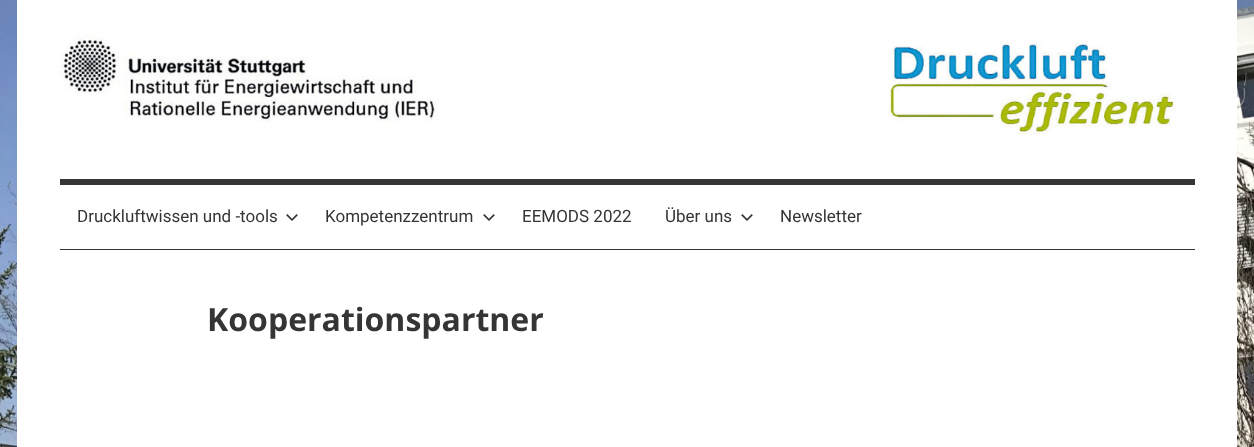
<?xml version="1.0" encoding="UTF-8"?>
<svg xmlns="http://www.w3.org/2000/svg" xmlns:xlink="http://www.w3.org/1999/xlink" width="1254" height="447">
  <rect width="100%" height="100%" fill="#ffffff" />
  <image x="0" y="0" width="1254" height="447" xlink:href="image1.png" />
  <rect x="17" width="1220" height="447" fill="#ffffff" />
  <image x="60" y="34" width="1117" height="101" xlink:href="image2.png" />
  <rect x="60" y="179" width="1135" height="6" fill="#353535" />
  <rect x="60" y="249" width="1135" height="1" fill="#353535" />
  <image x="286" y="214" width="12" height="7" xlink:href="image3.png" />
  <image x="483" y="214" width="12" height="7" xlink:href="image3.png" />
  <image x="741" y="214" width="12" height="7" xlink:href="image3.png" />
  <text x="77" y="222" style="font-family: Roboto; font-size: 17px; fill: #353535">Druckluftwissen und -tools</text>
  <text x="325" y="222" style="font-family: Roboto; font-size: 17px; fill: #353535">Kompetenzzentrum</text>
  <text x="522" y="222" style="font-family: Roboto; font-size: 17px; fill: #353535">EEMODS 2022</text>
  <text x="665" y="222" style="font-family: Roboto; font-size: 17px; fill: #353535">Über uns</text>
  <text x="780" y="222" style="font-family: Roboto; font-size: 17px; fill: #353535">Newsletter</text>
  <text x="207" y="331" style="font-family: Open Sans; font-size: 32px; font-weight: bold; fill: #353535">Kooperationspartner</text>
</svg>
